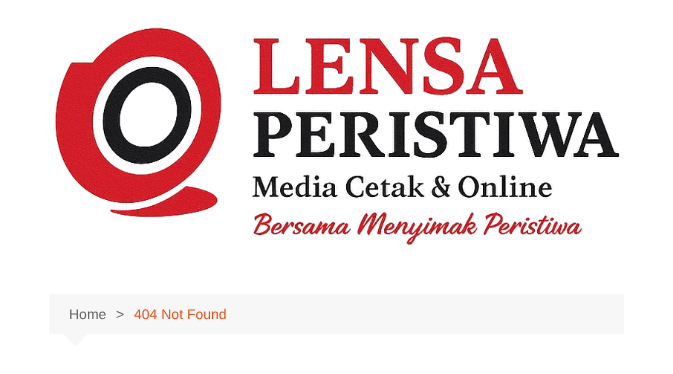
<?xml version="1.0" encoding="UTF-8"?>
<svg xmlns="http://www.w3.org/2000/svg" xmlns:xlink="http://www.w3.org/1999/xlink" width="673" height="374">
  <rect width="100%" height="100%" fill="#ffffff" />
  <image x="55" y="27" width="565" height="218" xlink:href="image1.png" />
  <rect x="49" y="294" width="575" height="40" fill="#f7f7f7" />
  <path d="M 63.5 334 h 24 l -12 13 z" fill="#f7f7f7" />
  <text x="69" y="319" style="font-family: Liberation Sans; font-size: 14px; fill: #666666">Home</text>
  <text x="116" y="319" style="font-family: Liberation Sans; font-size: 14px; fill: #666666">&gt;</text>
  <text x="134" y="319" style="font-family: Liberation Sans; font-size: 14px; fill: #ec521e">404 Not Found</text>
</svg>
